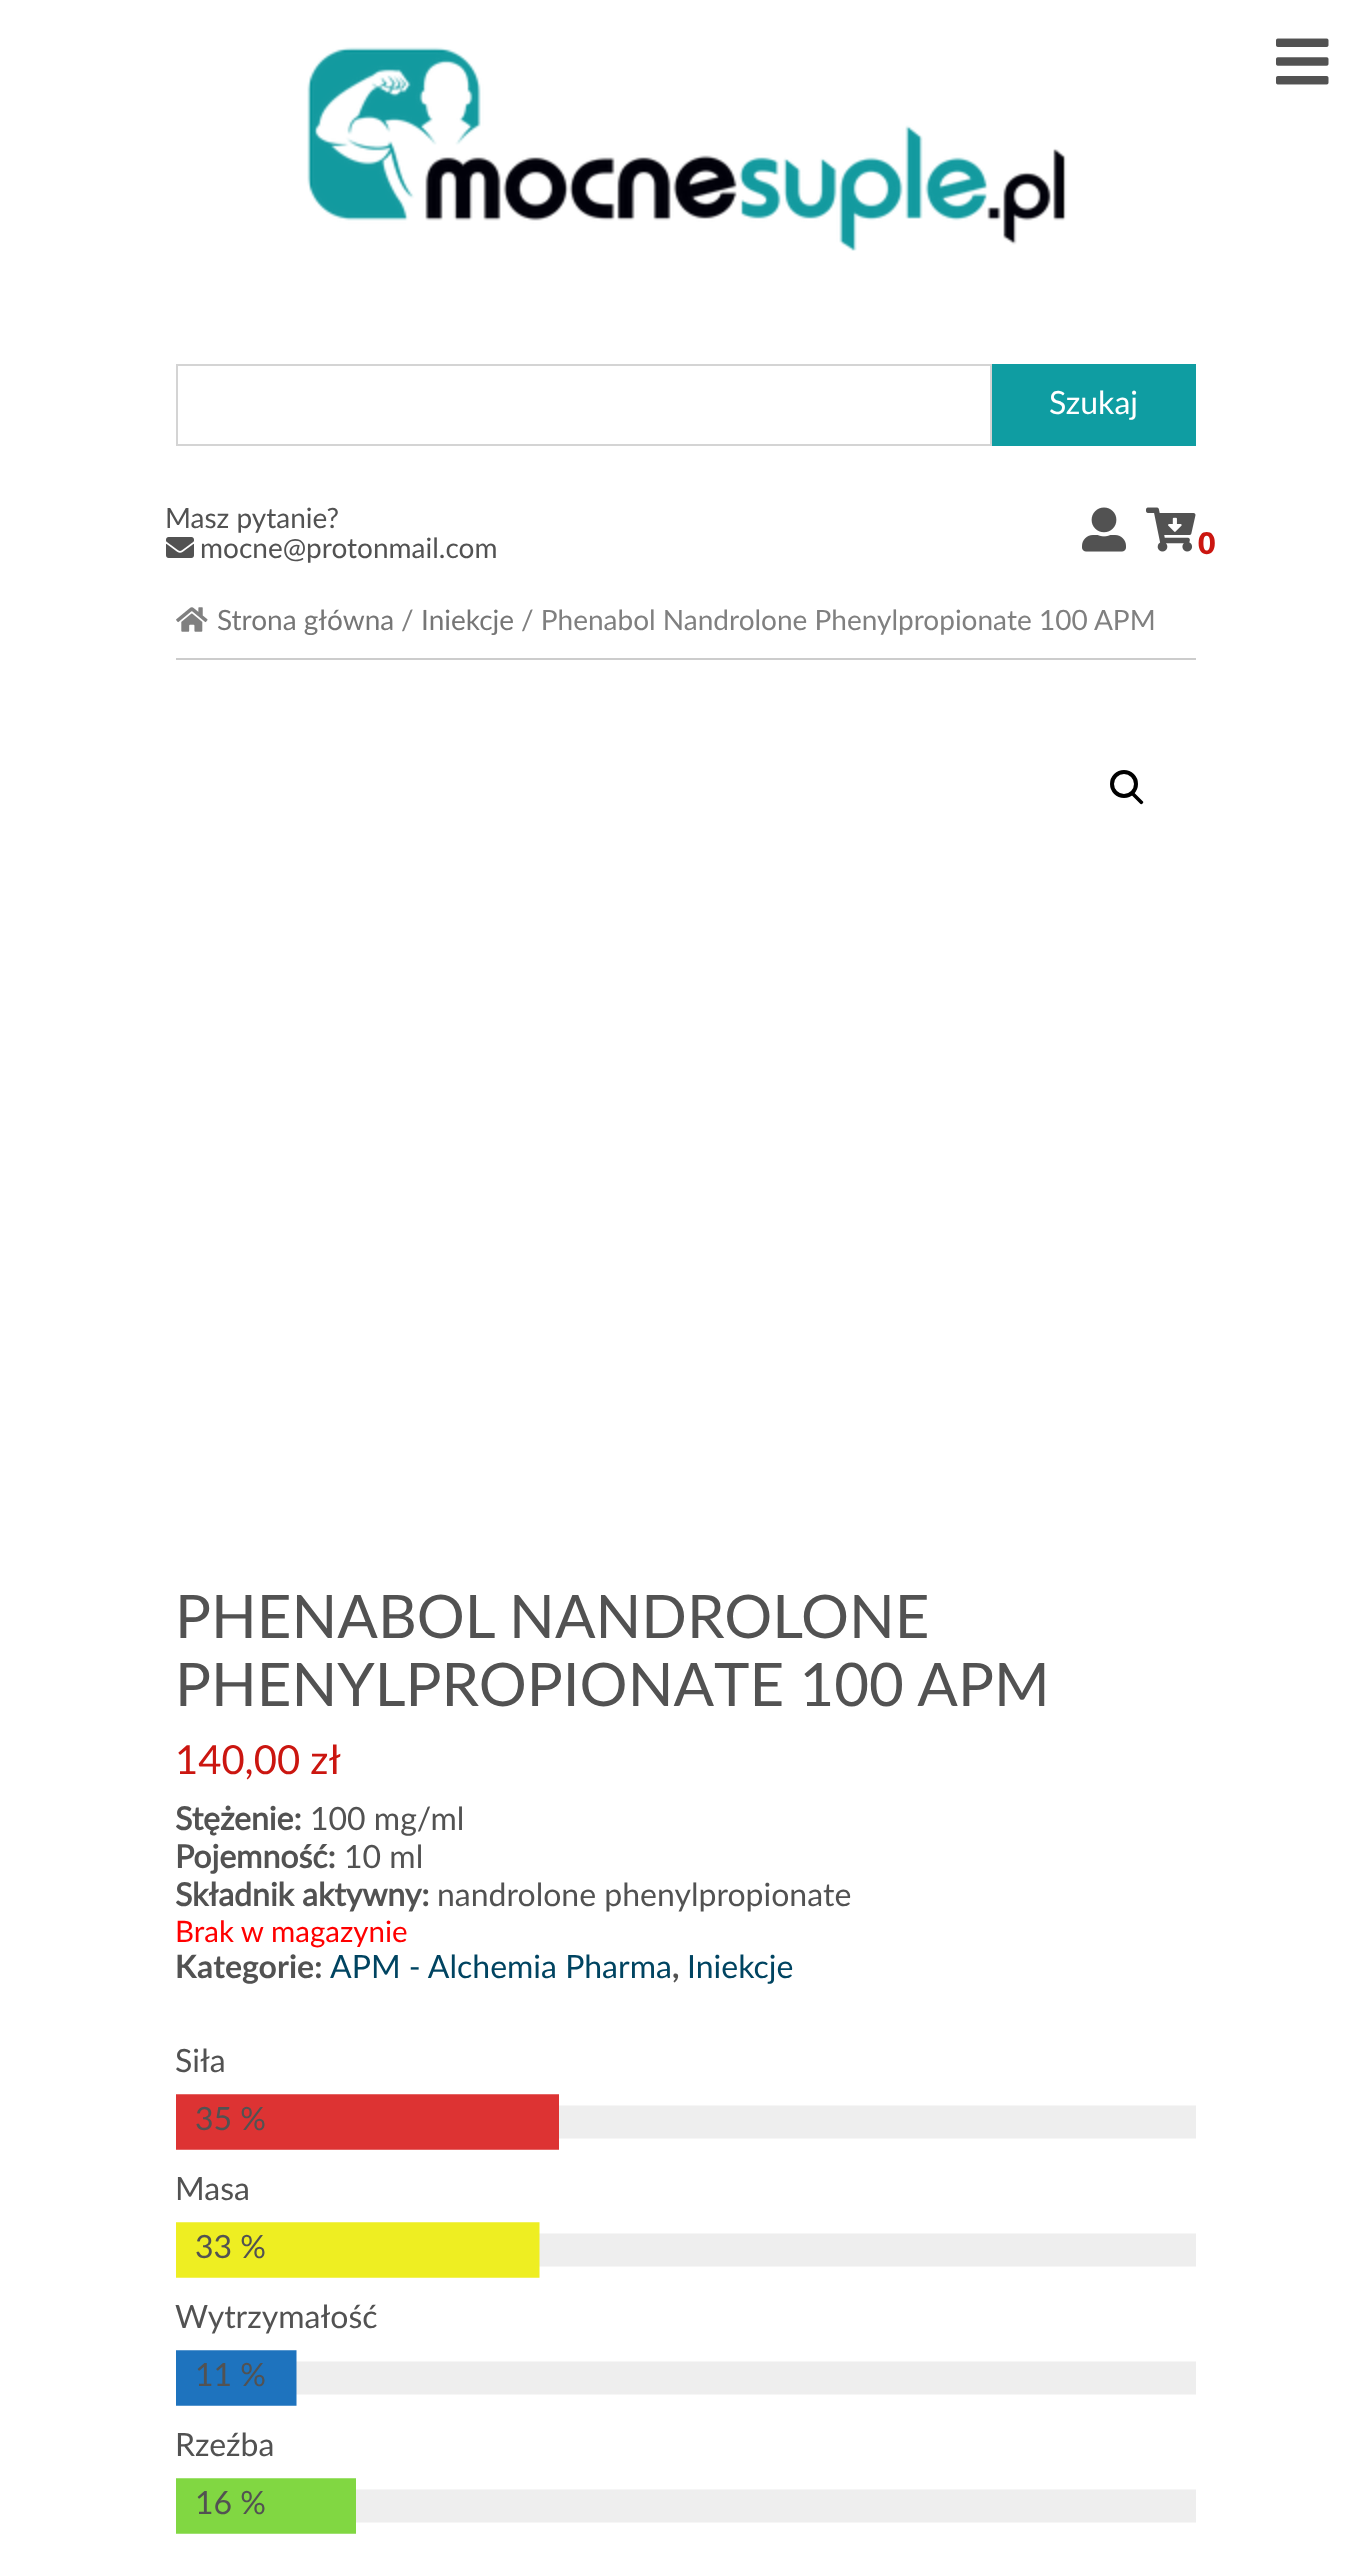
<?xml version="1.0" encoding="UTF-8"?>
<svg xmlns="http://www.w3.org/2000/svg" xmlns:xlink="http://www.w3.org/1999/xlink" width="1369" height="2575">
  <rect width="100%" height="100%" fill="#ffffff" />
  <image x="1276" y="38" width="53" height="47" xlink:href="image1.png" />
  <image x="307" y="47" width="760" height="204" xlink:href="image2.png" />
  <rect x="177" y="365" width="814" height="80" fill="none" stroke="#d4d4d4" stroke-width="2" />
  <rect x="992" y="364" width="204" height="82" fill="#0f9da2" />
  <image x="166" y="537" width="28" height="21" xlink:href="image3.png" />
  <image x="1082" y="507" width="44" height="45" xlink:href="image4.png" />
  <image x="1146" y="507" width="50" height="45" xlink:href="image5.png" />
  <rect x="176" y="658" width="1020" height="2" fill="#cccccc" />
  <image x="176" y="607" width="32" height="25" xlink:href="image6.png" />
  <circle cx="1124" cy="784" r="12" fill="none" stroke="#000000" stroke-width="4" />
  <path d="M 1131.5 792.5 c 0.5 -1 2 -1 2.5 0 l 8.5 8.5 c 1 0.5 1 2 0 2.5 c -0.5 1 -2 1 -2.5 0 l -8.5 -8.5 c -1 -0.5 -1 -2 0 -2.5 z" fill="#000000" />
  <path d="M 176 2122 h 1020" fill="none" stroke="#eeeeee" stroke-width="33.2" />
  <path d="M 176 2122 h 383" fill="none" stroke="#dd3333" stroke-width="55.3" />
  <path d="M 176 2250 h 1020" fill="none" stroke="#eeeeee" stroke-width="33.2" />
  <path d="M 176 2250 h 363.5" fill="none" stroke="#eeee22" stroke-width="55.3" />
  <path d="M 176 2378 h 1020" fill="none" stroke="#eeeeee" stroke-width="33.2" />
  <path d="M 176 2378 h 120.5" fill="none" stroke="#1e73be" stroke-width="55.3" />
  <path d="M 176 2506 h 1020" fill="none" stroke="#eeeeee" stroke-width="33.2" />
  <path d="M 176 2506 h 180" fill="none" stroke="#81d742" stroke-width="55.3" />
  <text x="1049" y="414" style="font-family: Lato; font-size: 32px; fill: #ffffff">Szukaj</text>
  <text x="165" y="528" style="font-family: Lato; font-size: 28px; fill: #525252">Masz pytanie?</text>
  <text x="200" y="558" style="font-family: Lato; font-size: 28px; fill: #525252">mocne@protonmail.com</text>
  <text x="1198" y="554" style="font-family: Lato; font-size: 30px; font-weight: 900; fill: #cb1610">0</text>
  <text x="217" y="630" style="font-family: Lato; font-size: 28px; fill: #767676">Strona główna</text>
  <text x="401" y="630" style="font-family: Lato; font-size: 28px; fill: #808080">/</text>
  <text x="421" y="630" style="font-family: Lato; font-size: 28px; fill: #767676">Iniekcje</text>
  <text x="521" y="630" style="font-family: Lato; font-size: 28px; fill: #808080">/ Phenabol Nandrolone Phenylpropionate 100 APM</text>
  <text x="175" y="1638" style="font-family: Lato; font-size: 60px; fill: #525252">PHENABOL NANDROLONE</text>
  <text x="175" y="1706" style="font-family: Lato; font-size: 60px; fill: #525252">PHENYLPROPIONATE 100 APM</text>
  <text x="175" y="1774" style="font-family: Lato; font-size: 40px; fill: #cb1610">140,00 zł</text>
  <text x="175" y="1830" style="font-family: Lato; font-size: 32px; font-weight: bold; fill: #525252">Stężenie:</text>
  <text x="310" y="1830" style="font-family: Lato; font-size: 32px; fill: #525252">100 mg/ml</text>
  <text x="175" y="1868" style="font-family: Lato; font-size: 32px; font-weight: bold; fill: #525252">Pojemność:</text>
  <text x="344" y="1868" style="font-family: Lato; font-size: 32px; fill: #525252">10 ml</text>
  <text x="175" y="1906" style="font-family: Lato; font-size: 32px; font-weight: bold; fill: #525252">Składnik aktywny:</text>
  <text x="437" y="1906" style="font-family: Lato; font-size: 32px; fill: #525252">nandrolone phenylpropionate</text>
  <text x="175" y="1942" style="font-family: Lato; font-size: 29.5px; fill: #ff0000">Brak w magazynie</text>
  <text x="175" y="1978" style="font-family: 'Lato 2'; font-size: 32px; font-weight: bold; fill: #525252">Kategorie:</text>
  <text x="330" y="1978" style="font-family: Lato; font-size: 32px; fill: #004461">APM - Alchemia Pharma</text>
  <text x="672" y="1978" style="font-family: 'Lato 2'; font-size: 32px; font-weight: bold; fill: #525252">,</text>
  <text x="687" y="1978" style="font-family: Lato; font-size: 32px; fill: #004461">Iniekcje</text>
  <text x="175" y="2072" style="font-family: Lato; font-size: 32px; fill: #525252">Siła</text>
  <text x="195" y="2130" style="font-family: Lato; font-size: 32px; fill: #525252">35 %</text>
  <text x="175" y="2200" style="font-family: Lato; font-size: 32px; fill: #525252">Masa</text>
  <text x="195" y="2258" style="font-family: Lato; font-size: 32px; fill: #525252">33 %</text>
  <text x="175" y="2328" style="font-family: Lato; font-size: 32px; fill: #525252">Wytrzymałość</text>
  <text x="195" y="2386" style="font-family: Lato; font-size: 32px; fill: #525252">11 %</text>
  <text x="175" y="2456" style="font-family: Lato; font-size: 32px; fill: #525252">Rzeźba</text>
  <text x="195" y="2514" style="font-family: Lato; font-size: 32px; fill: #525252">16 %</text>
</svg>
